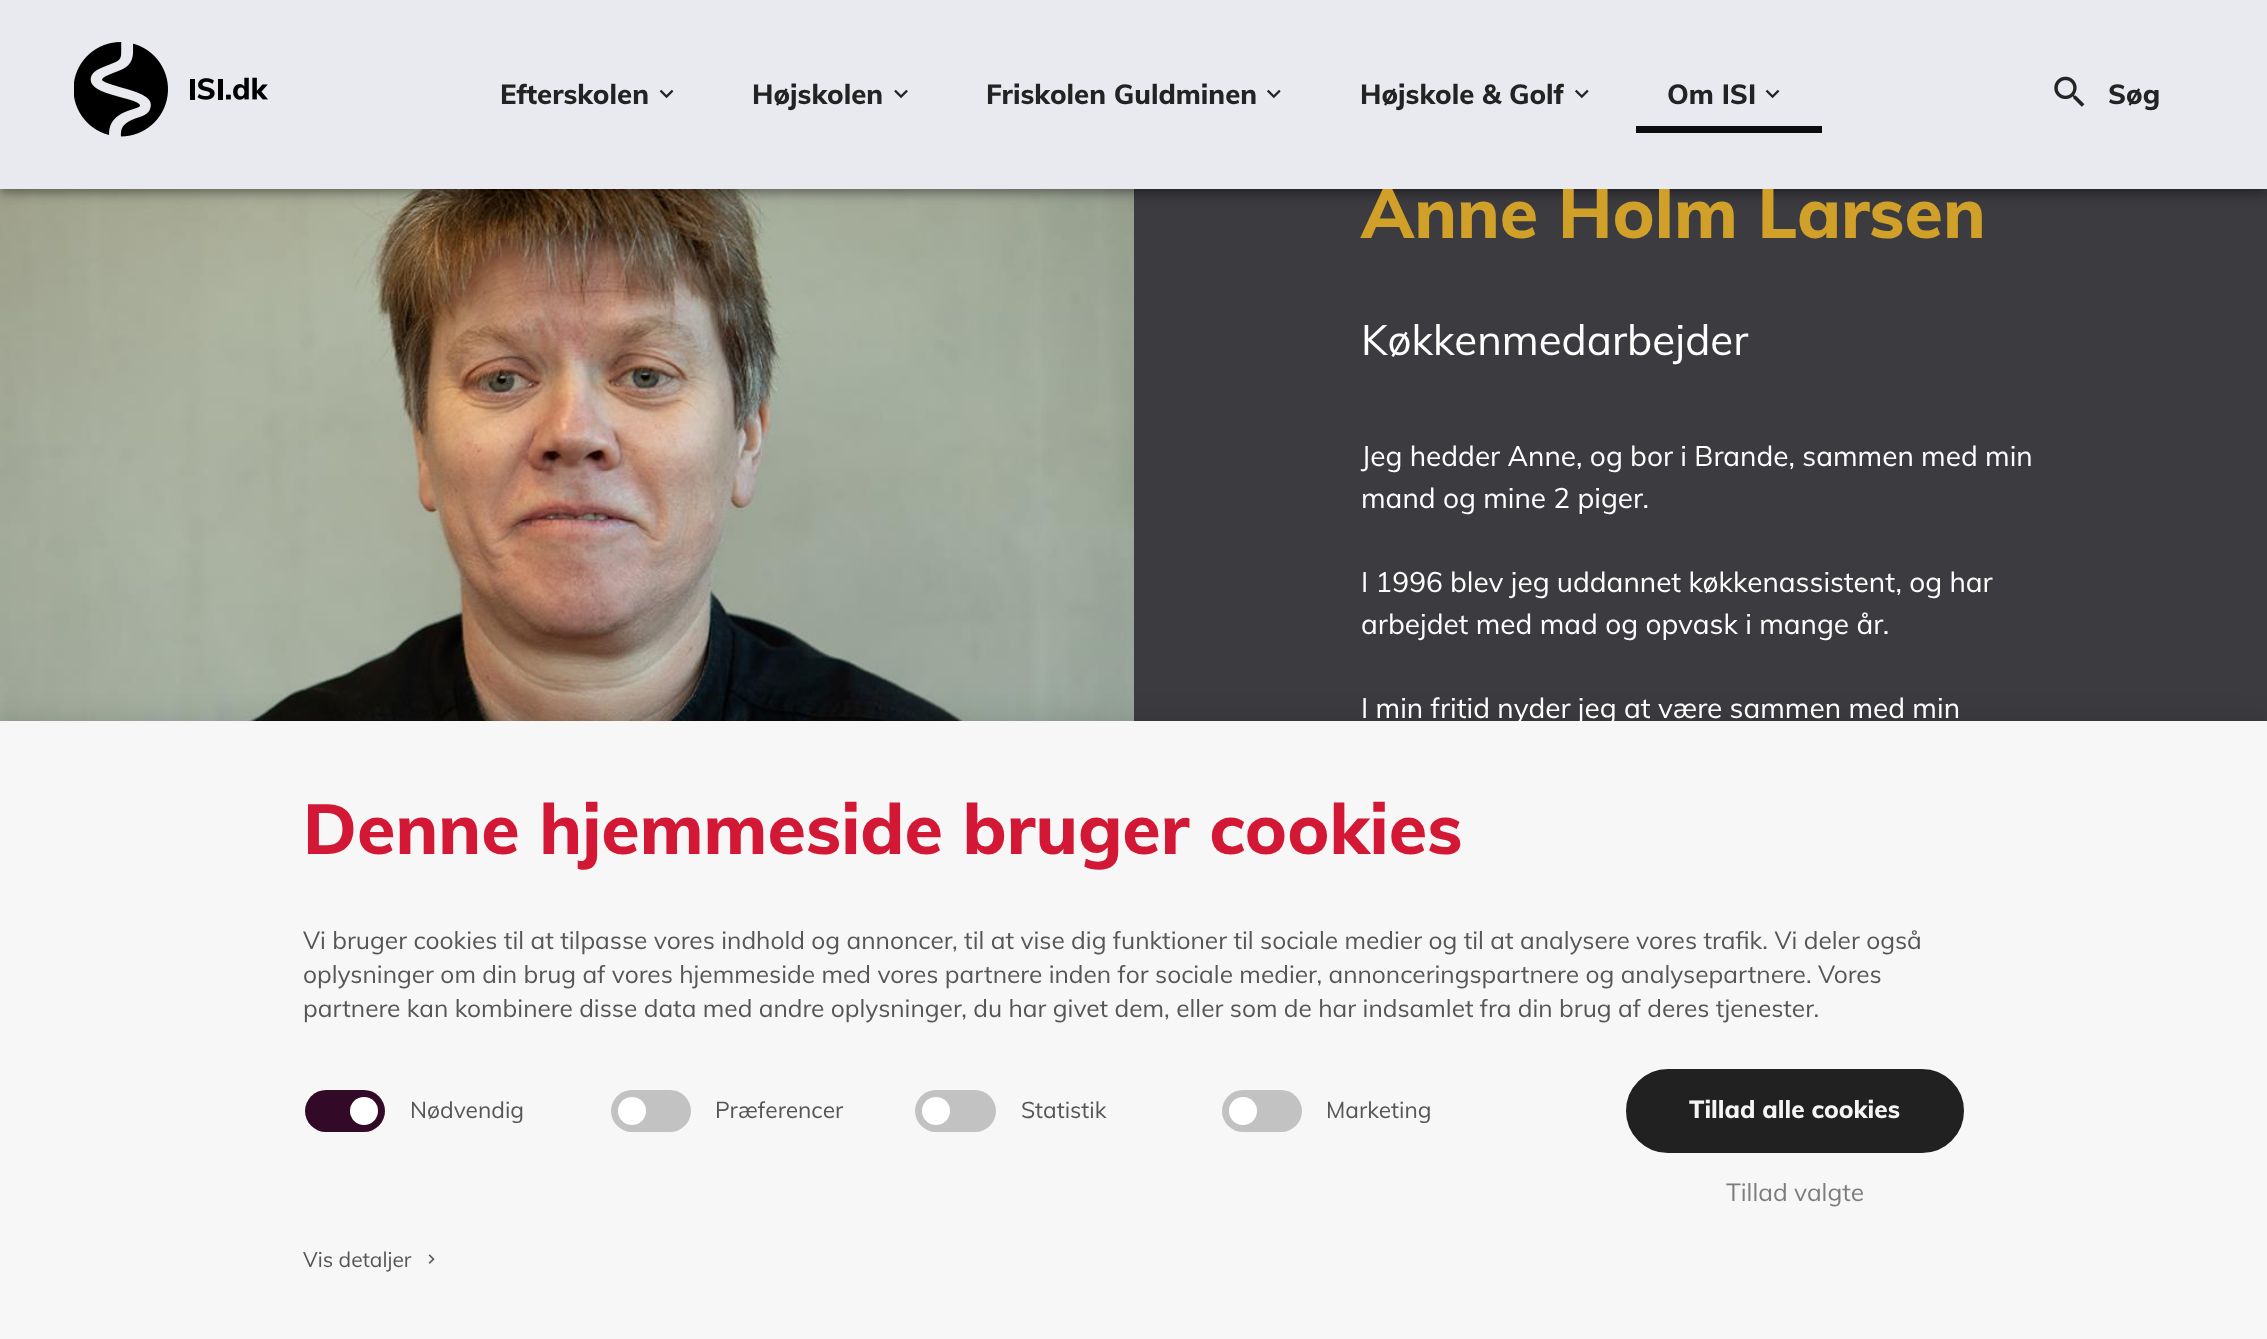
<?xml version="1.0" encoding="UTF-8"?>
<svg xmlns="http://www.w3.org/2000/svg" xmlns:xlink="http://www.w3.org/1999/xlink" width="2267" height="1339">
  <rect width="100%" height="100%" fill="#3c3c40" />
  <image x="0" y="189" width="1134" height="532" xlink:href="image6.png" />
  <rect x="2" y="5" width="2264" height="186" fill="#000000" fill-opacity="0.2" filter="blur(3.5px)" />
  <rect y="2" width="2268" height="189" fill="#000000" fill-opacity="0.12" filter="blur(9px)" />
  <rect y="7" width="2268" height="189" fill="#000000" fill-opacity="0.14" filter="blur(4.5px)" />
  <rect x="-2" y="719" width="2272" height="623" fill="#000000" fill-opacity="0.1" filter="blur(13px)" />
  <text x="1361" y="238" style="font-family: Muli; font-size: 70px; font-weight: 800; fill: #d0a029">Anne Holm Larsen</text>
  <rect width="2267" height="189" fill="#e9eaf0" />
  <image x="2054" y="76" width="31" height="31" xlink:href="image5.png" />
  <text x="2108" y="104" style="font-family: Muli; font-size: 27.5px; font-weight: 800; fill: #232324">Søg</text>
  <rect x="1636" y="126" width="186" height="7" fill="#0c0c0c" />
  <image x="1765" y="89" width="15" height="10" xlink:href="image2.png" />
  <text x="1667" y="104" style="font-family: Muli; font-size: 27.5px; font-weight: 800; fill: #232324">Om ISI</text>
  <image x="1575" y="89" width="14" height="10" xlink:href="image4.png" />
  <text x="1360" y="104" style="font-family: Muli; font-size: 27.5px; font-weight: 800; fill: #232324">Højskole &amp; Golf</text>
  <image x="1267" y="89" width="14" height="10" xlink:href="image4.png" />
  <text x="986" y="104" style="font-family: Muli; font-size: 27.5px; font-weight: 800; fill: #232324">Friskolen Guldminen</text>
  <image x="894" y="89" width="14" height="10" xlink:href="image3.png" />
  <text x="752" y="104" style="font-family: Muli; font-size: 27.5px; font-weight: 800; fill: #232324">Højskolen</text>
  <image x="659" y="89" width="15" height="10" xlink:href="image2.png" />
  <text x="500" y="104" style="font-family: Muli; font-size: 27.5px; font-weight: 800; fill: #232324">Efterskolen</text>
  <image x="74" y="42" width="194" height="95" xlink:href="image1.png" />
  <text x="1361" y="355" style="font-family: Muli; font-size: 42px; fill: #ffffff">Køkkenmedarbejder</text>
  <text x="1361" y="466" style="font-family: Muli; font-size: 28px; fill: #ffffff">Jeg hedder Anne, og bor i Brande, sammen med min</text>
  <text x="1361" y="508" style="font-family: Muli; font-size: 28px; fill: #ffffff">mand og mine 2 piger.</text>
  <text x="1361" y="592" style="font-family: Muli; font-size: 28px; fill: #ffffff">I 1996 blev jeg uddannet køkkenassistent, og har</text>
  <text x="1361" y="634" style="font-family: Muli; font-size: 28px; fill: #ffffff">arbejdet med mad og opvask i mange år.</text>
  <text x="1361" y="718" style="font-family: Muli; font-size: 28px; fill: #ffffff">I min fritid nyder jeg at være sammen med min</text>
  <rect y="721" width="2267" height="618" fill="#f7f7f7" />
  <text x="303" y="854" style="font-family: Muli; font-size: 70px; font-weight: 800; fill: #d31836">Denne hjemmeside bruger cookies</text>
  <text x="303" y="949" style="font-family: Muli; font-size: 24.5px; fill: #565656">Vi bruger cookies til at tilpasse vores indhold og annoncer, til at vise dig funktioner til sociale medier og til at analysere vores trafik. Vi deler også</text>
  <text x="303" y="983" style="font-family: Muli; font-size: 24.5px; fill: #565656">oplysninger om din brug af vores hjemmeside med vores partnere inden for sociale medier, annonceringspartnere og analysepartnere. Vores</text>
  <text x="303" y="1017" style="font-family: Muli; font-size: 24.5px; fill: #565656">partnere kan kombinere disse data med andre oplysninger, du har givet dem, eller som de har indsamlet fra din brug af deres tjenester.</text>
  <rect x="305" y="1090" width="80" height="42" rx="21" fill="#320a28" />
  <circle cx="364" cy="1111" r="14" fill="#ffffff" />
  <text x="410" y="1118" style="font-family: Muli; font-size: 22.75px; fill: #565656">Nødvendig</text>
  <rect x="611" y="1090" width="80" height="42" rx="21" fill="#c2c2c2" />
  <circle cx="632" cy="1111" r="14" fill="#ffffff" />
  <text x="715" y="1118" style="font-family: Muli; font-size: 22.75px; fill: #565656">Præferencer</text>
  <rect x="915" y="1090" width="81" height="42" rx="21" fill="#c2c2c2" />
  <circle cx="936" cy="1111" r="14" fill="#ffffff" />
  <text x="1021" y="1118" style="font-family: Muli; font-size: 22.75px; fill: #565656">Statistik</text>
  <rect x="1222" y="1090" width="80" height="42" rx="21" fill="#c2c2c2" />
  <circle cx="1243" cy="1111" r="14" fill="#ffffff" />
  <text x="1326" y="1118" style="font-family: Muli; font-size: 22.75px; fill: #565656">Marketing</text>
  <rect x="1627" y="1070" width="336" height="82" rx="41" fill="#212121" stroke="#212121" stroke-width="2" />
  <text x="1689" y="1118" style="font-family: Muli; font-size: 24.5px; font-weight: 800; fill: #f5f5f5">Tillad alle cookies</text>
  <text x="1726" y="1201" style="font-family: Muli; font-size: 24.5px; fill: #7d7d80">Tillad valgte</text>
  <text x="303" y="1267" style="font-family: Muli; font-size: 21px; fill: #565656">Vis detaljer</text>
  <image x="428" y="1254" width="7" height="10" xlink:href="image7.png" />
</svg>
